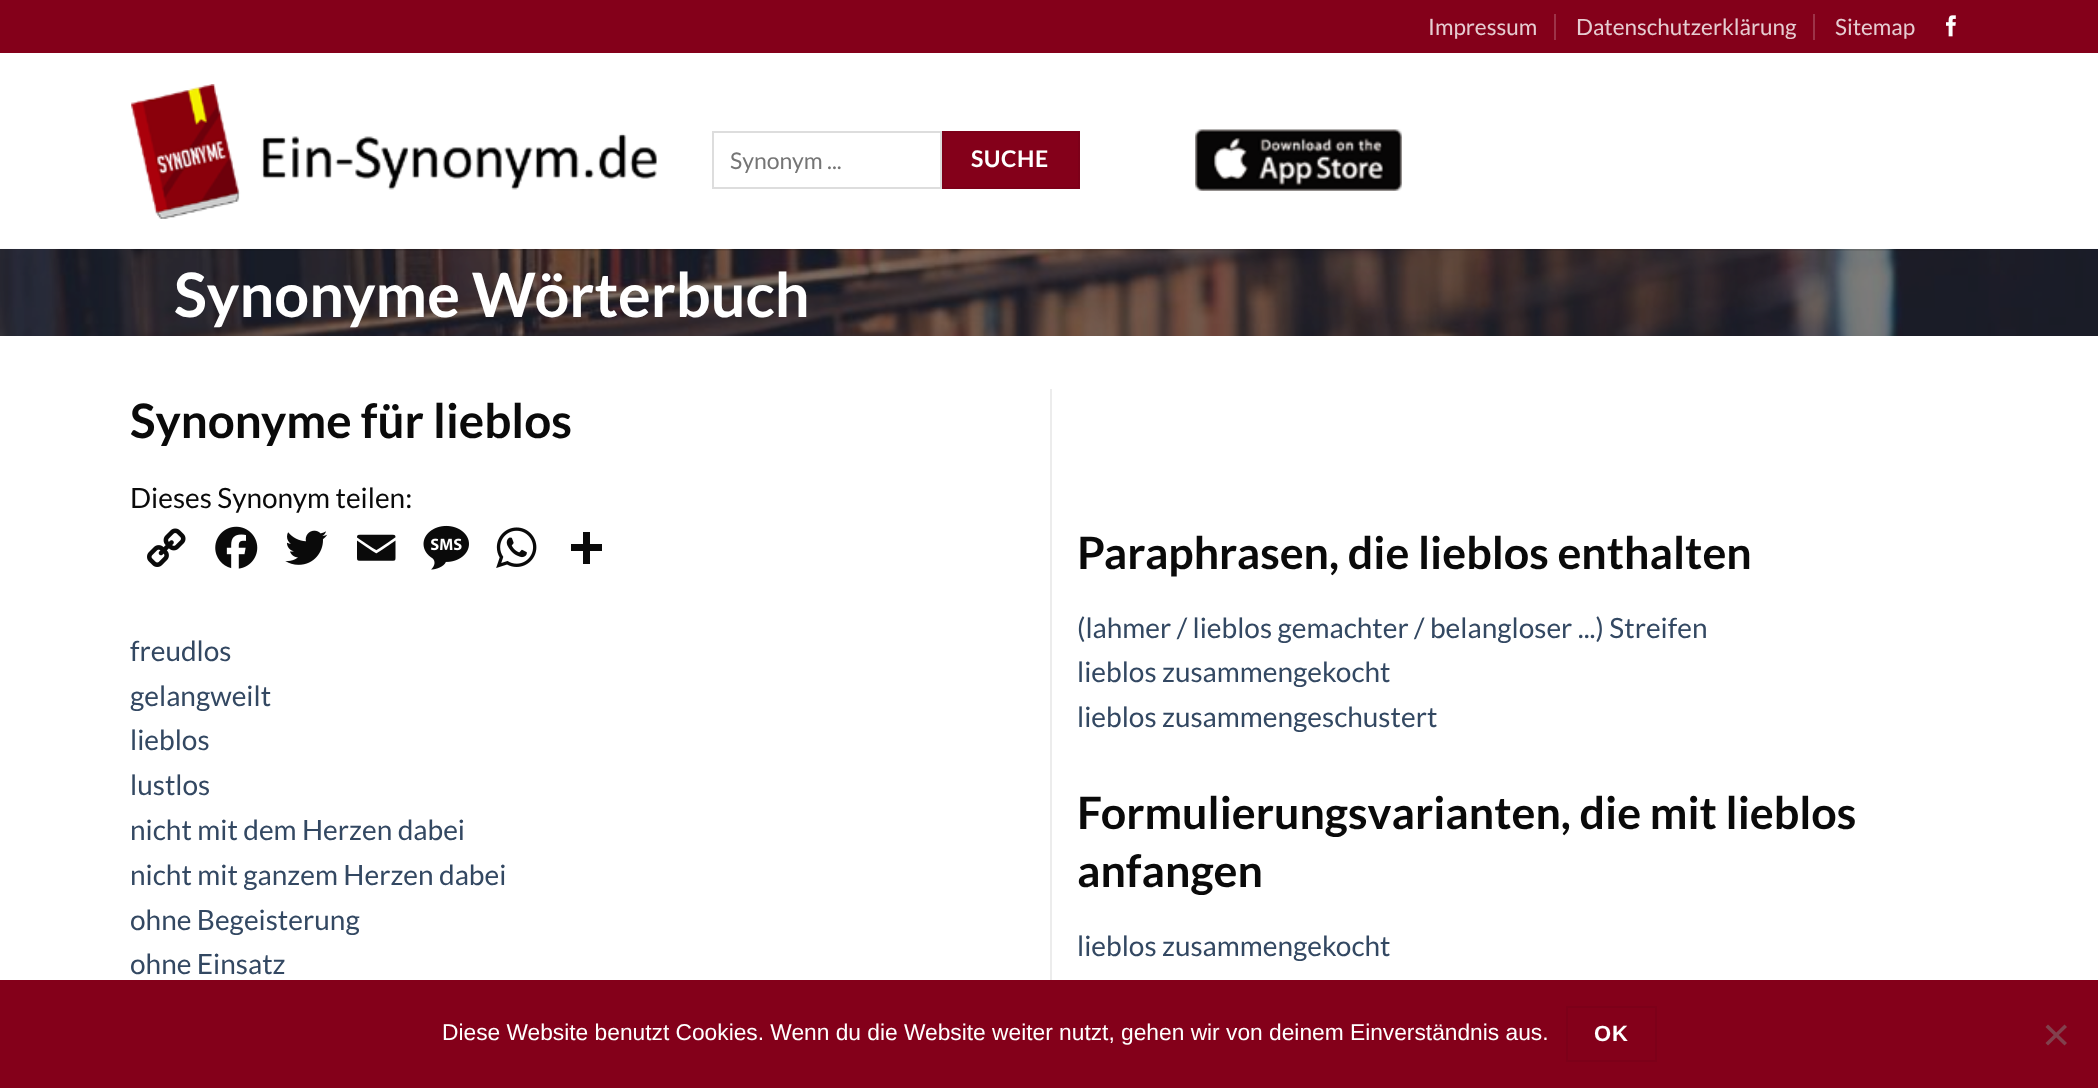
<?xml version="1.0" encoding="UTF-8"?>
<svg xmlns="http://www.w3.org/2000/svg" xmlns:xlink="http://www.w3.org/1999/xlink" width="2098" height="1088">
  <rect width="100%" height="100%" fill="#ffffff" />
  <rect width="2098" height="53" fill="#84001a" />
  <rect x="1554" y="14" width="2" height="26" fill="#9d3348" />
  <rect x="1813" y="14" width="2" height="26" fill="#9d3348" />
  <image x="1946" y="15" width="10" height="22" xlink:href="image1.png" />
  <image x="131" y="84" width="526" height="135" xlink:href="image2.png" />
  <rect x="713" y="132" width="228" height="56" fill="none" stroke="#dddddd" stroke-width="2" />
  <rect x="943" y="132" width="136" height="56" fill="#84001a" stroke="#7d0019" stroke-width="2" />
  <image x="1195" y="129" width="207" height="62" xlink:href="image3.png" />
  <image x="0" y="248" width="2098" height="88" xlink:href="image4.png" />
  <rect x="131" y="249" width="1838" height="2" fill="#0a0a0a" fill-opacity="0.1" />
  <rect y="248" width="2098" height="1" fill="#ffffff" fill-opacity="0.9" />
  <image x="147" y="528" width="39" height="39" xlink:href="image5.png" />
  <image x="215" y="526" width="43" height="43" xlink:href="image6.png" />
  <image x="285" y="530" width="43" height="35" xlink:href="image7.png" />
  <image x="357" y="534" width="39" height="27" xlink:href="image8.png" />
  <image x="423" y="525" width="46" height="45" xlink:href="image9.png" />
  <image x="496" y="527" width="41" height="41" xlink:href="image10.png" />
  <rect x="583" y="532" width="7" height="32" fill="#0a0a0a" />
  <rect x="571" y="544" width="31" height="7" fill="#0a0a0a" />
  <rect x="1050" y="389" width="2" height="591" fill="#ececec" />
  <rect y="980" width="2098" height="108" fill="#84001a" />
  <rect x="1567" y="1007" width="89" height="54" fill="none" stroke="#7d0019" stroke-width="2" />
  <path d="M 2064.5 1024.5 l 2.5 2.5 l -19 18.5 l -2.5 -2.5 z" fill="#82404d" />
  <path d="M 2045.5 1027 l 2.5 -2.5 l 19 18.5 l -2.5 2.5 z" fill="#82404d" />
  <text x="1428" y="35" style="font-family: Lato; font-size: 22.5px; fill: #e6ccd1">Impressum</text>
  <text x="1576" y="35" style="font-family: Lato; font-size: 22.5px; fill: #e6ccd1">Datenschutzerklärung</text>
  <text x="1835" y="35" style="font-family: Lato; font-size: 22.5px; fill: #e6ccd1">Sitemap</text>
  <text x="730" y="169" style="font-family: Lato; font-size: 23px; fill: #757575">Synonym ...</text>
  <text x="971" y="167" style="font-family: Lato; font-size: 23px; font-weight: bold; letter-spacing: 0.5px; fill: #ffffff">SUCHE</text>
  <text x="174" y="317" style="font-family: Lato; font-size: 61.25px; font-weight: bold; fill: #ffffff">Synonyme Wörterbuch</text>
  <text x="130" y="438" style="font-family: Lato; font-size: 47.5px; font-weight: bold; fill: #0a0a0a">Synonyme für lieblos</text>
  <text x="130" y="508" style="font-family: Lato; font-size: 28px; fill: #0a0a0a">Dieses Synonym teilen:</text>
  <text x="130" y="661" style="font-family: Lato; font-size: 28px; fill: #334862">freudlos</text>
  <text x="130" y="706" style="font-family: Lato; font-size: 28px; fill: #334862">gelangweilt</text>
  <text x="130" y="750" style="font-family: Lato; font-size: 28px; fill: #334862">lieblos</text>
  <text x="130" y="795" style="font-family: Lato; font-size: 28px; fill: #334862">lustlos</text>
  <text x="130" y="840" style="font-family: Lato; font-size: 28px; fill: #334862">nicht mit dem Herzen dabei</text>
  <text x="130" y="885" style="font-family: Lato; font-size: 28px; fill: #334862">nicht mit ganzem Herzen dabei</text>
  <text x="130" y="930" style="font-family: Lato; font-size: 28px; fill: #334862">ohne Begeisterung</text>
  <text x="130" y="974" style="font-family: Lato; font-size: 28px; fill: #334862">ohne Einsatz</text>
  <text x="1077" y="569" style="font-family: Lato; font-size: 44.75px; font-weight: bold; fill: #0a0a0a">Paraphrasen, die lieblos enthalten</text>
  <text x="1077" y="638" style="font-family: Lato; font-size: 28px; fill: #334862">(lahmer / lieblos gemachter / belangloser ...) Streifen</text>
  <text x="1077" y="682" style="font-family: Lato; font-size: 28px; fill: #334862">lieblos zusammengekocht</text>
  <text x="1077" y="727" style="font-family: Lato; font-size: 28px; fill: #334862">lieblos zusammengeschustert</text>
  <text x="1077" y="829" style="font-family: Lato; font-size: 44.75px; font-weight: bold; fill: #0a0a0a">Formulierungsvarianten, die mit lieblos</text>
  <text x="1077" y="887" style="font-family: Lato; font-size: 44.75px; font-weight: bold; fill: #0a0a0a">anfangen</text>
  <text x="1077" y="956" style="font-family: Lato; font-size: 28px; fill: #334862">lieblos zusammengekocht</text>
  <text x="442" y="1040" style="font-family: Liberation Sans; font-size: 22.75px; fill: #ffffff">Diese Website benutzt Cookies. Wenn du die Website weiter nutzt, gehen wir von deinem Einverständnis aus.</text>
  <text x="1594" y="1041" style="font-family: Liberation Sans; font-size: 22px; font-weight: bold; letter-spacing: 1px; fill: #ffffff">OK</text>
</svg>
